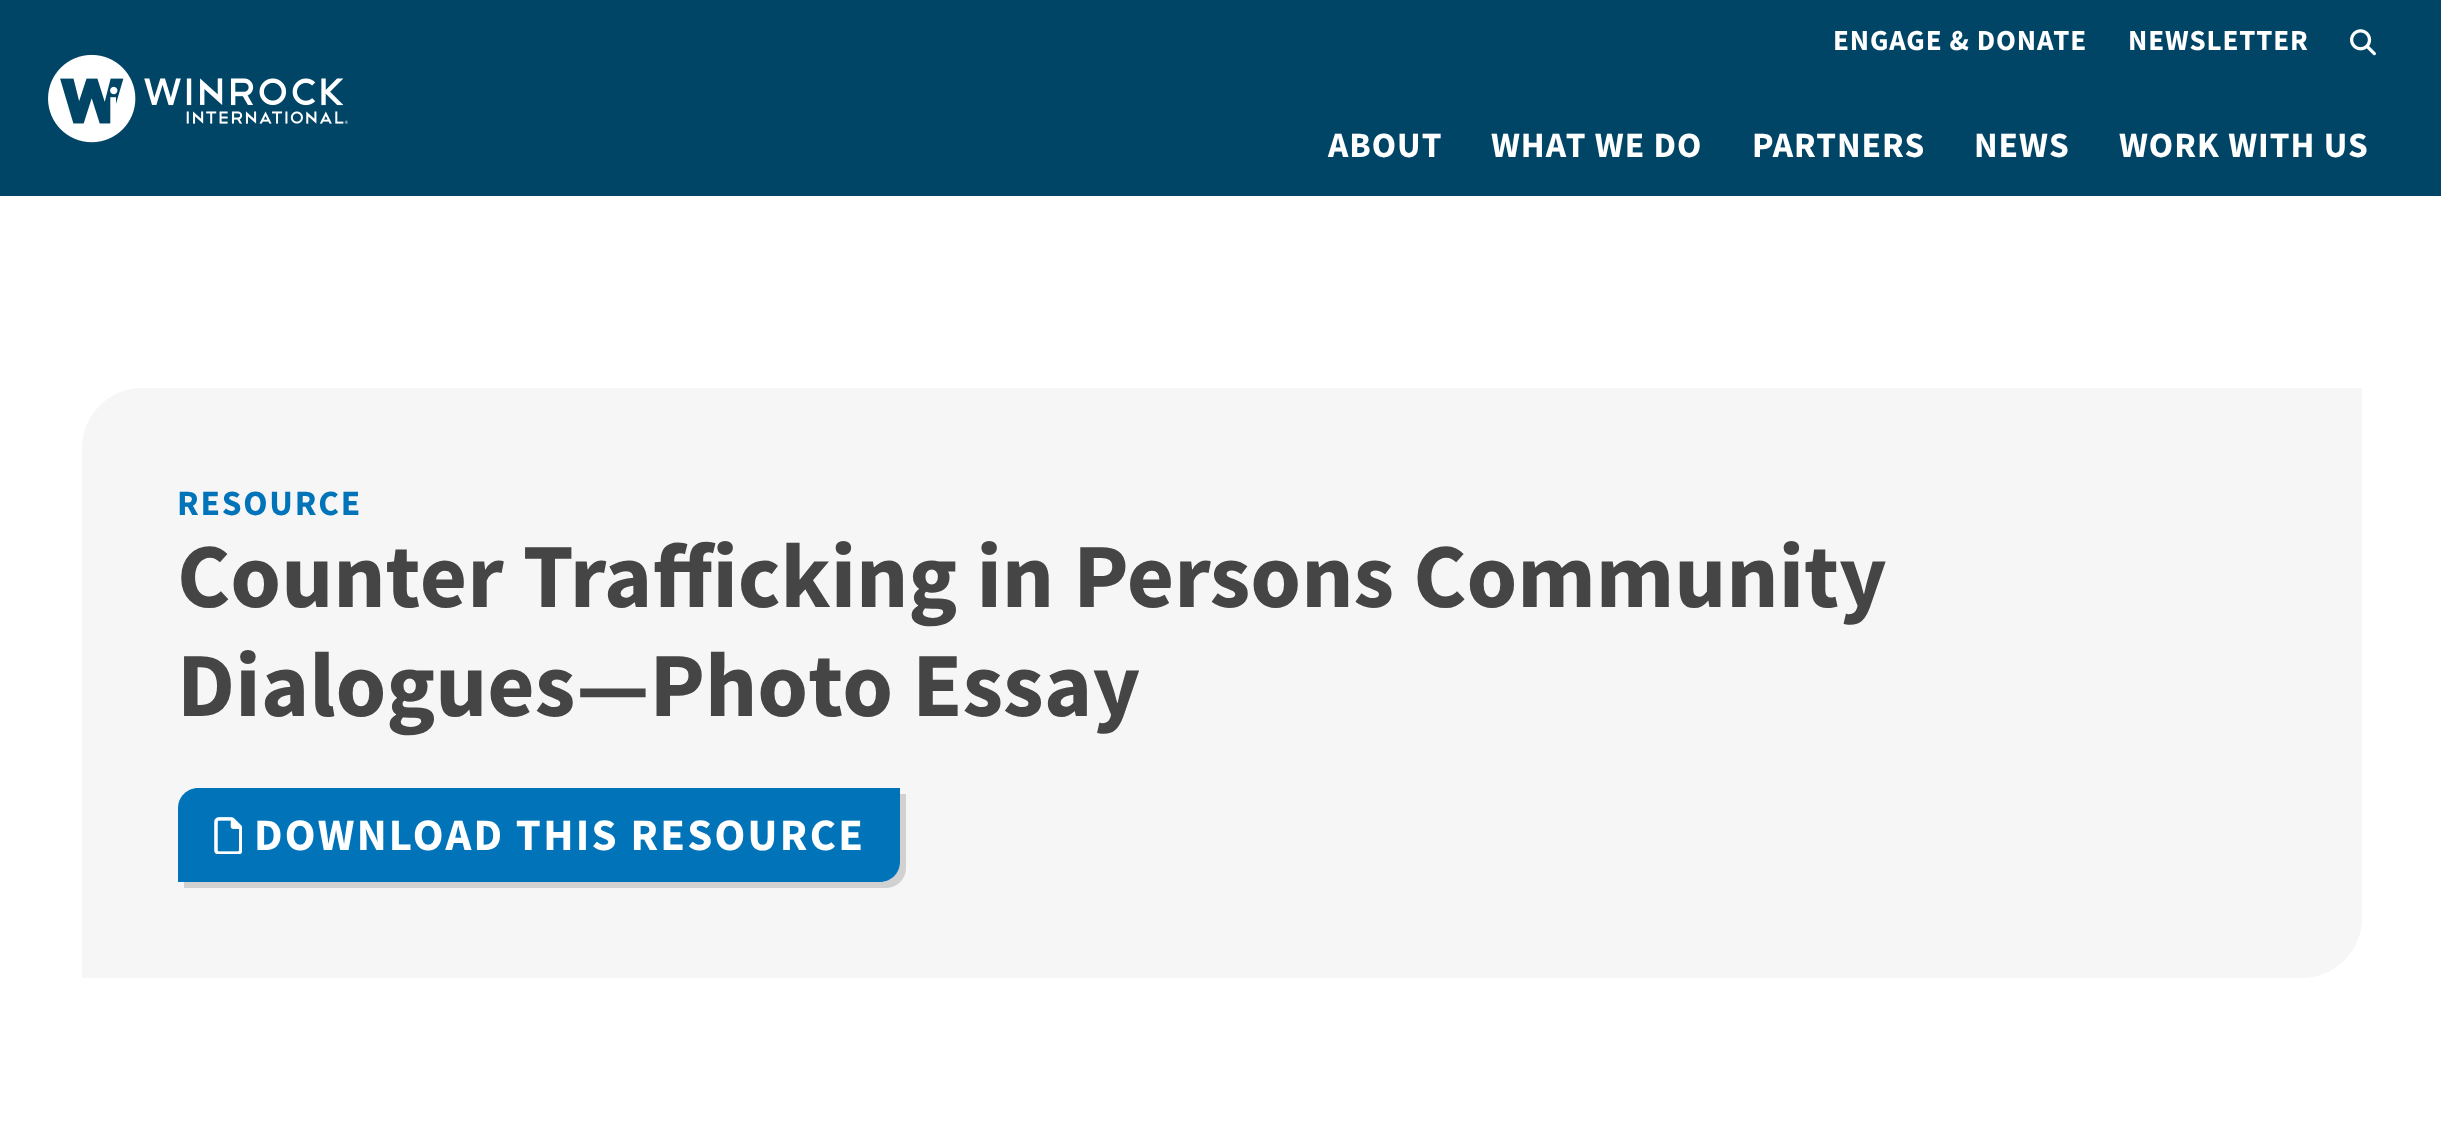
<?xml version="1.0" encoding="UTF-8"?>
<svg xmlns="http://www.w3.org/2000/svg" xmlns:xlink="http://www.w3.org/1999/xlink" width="2441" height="1122">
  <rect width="100%" height="100%" fill="#ffffff" />
  <rect width="2441" height="196" fill="#004466" />
  <image x="48" y="54" width="300" height="89" xlink:href="image1.png" />
  <image x="2350" y="29" width="26" height="27" xlink:href="image2.png" />
  <path d="M 142 388 h 2220 v 530 c 0 33 -27 60 -60 60 h -2220 v -530 c 0 -33 27 -60 60 -60 z" fill="#f6f6f6" />
  <path d="M 184 882 v 6 h 702 c 11 0 20 -9 20 -20 v -74 h -6 v 68 c 0 11 -9 20 -20 20 z" fill="#d1d1d1" />
  <path d="M 198 788 h 702 v 74 c 0 11 -9 20 -20 20 h -702 v -74 c 0 -11 9 -20 20 -20 z" fill="#0073b9" />
  <image x="214" y="817" width="28" height="37" xlink:href="image3.png" />
  <text x="1833" y="50" style="font-family: Source Sans Pro; font-size: 29px; font-weight: bold; letter-spacing: 0.9px; fill: #ffffff">ENGAGE &amp; DONATE</text>
  <text x="2128" y="50" style="font-family: Source Sans Pro; font-size: 29px; font-weight: bold; letter-spacing: 0.9px; fill: #ffffff">NEWSLETTER</text>
  <text x="1328" y="157" style="font-family: Source Sans Pro; font-size: 35.5px; font-weight: bold; letter-spacing: 1px; fill: #ffffff">ABOUT</text>
  <text x="1491" y="157" style="font-family: Source Sans Pro; font-size: 35.5px; font-weight: bold; letter-spacing: 1px; fill: #ffffff">WHAT WE DO</text>
  <text x="1752" y="157" style="font-family: Source Sans Pro; font-size: 35.5px; font-weight: bold; letter-spacing: 1px; fill: #ffffff">PARTNERS</text>
  <text x="1974" y="157" style="font-family: Source Sans Pro; font-size: 35.5px; font-weight: bold; letter-spacing: 1px; fill: #ffffff">NEWS</text>
  <text x="2119" y="157" style="font-family: Source Sans Pro; font-size: 35.5px; font-weight: bold; letter-spacing: 1px; fill: #ffffff">WORK WITH US</text>
  <text x="177" y="515" style="font-family: Source Sans Pro; font-size: 35.5px; font-weight: bold; letter-spacing: 1.75px; fill: #0073b9">RESOURCE</text>
  <text x="177" y="607" style="font-family: Source Sans Pro; font-size: 91.6px; font-weight: bold; fill: #454545">Counter Trafficking in Persons Community</text>
  <text x="177" y="716" style="font-family: Source Sans Pro; font-size: 91.6px; font-weight: bold; fill: #454545">Dialogues—Photo Essay</text>
  <text x="254" y="850" style="font-family: Source Sans Pro; font-size: 45px; font-weight: bold; letter-spacing: 2.25px; fill: #ffffff">DOWNLOAD THIS RESOURCE</text>
</svg>
